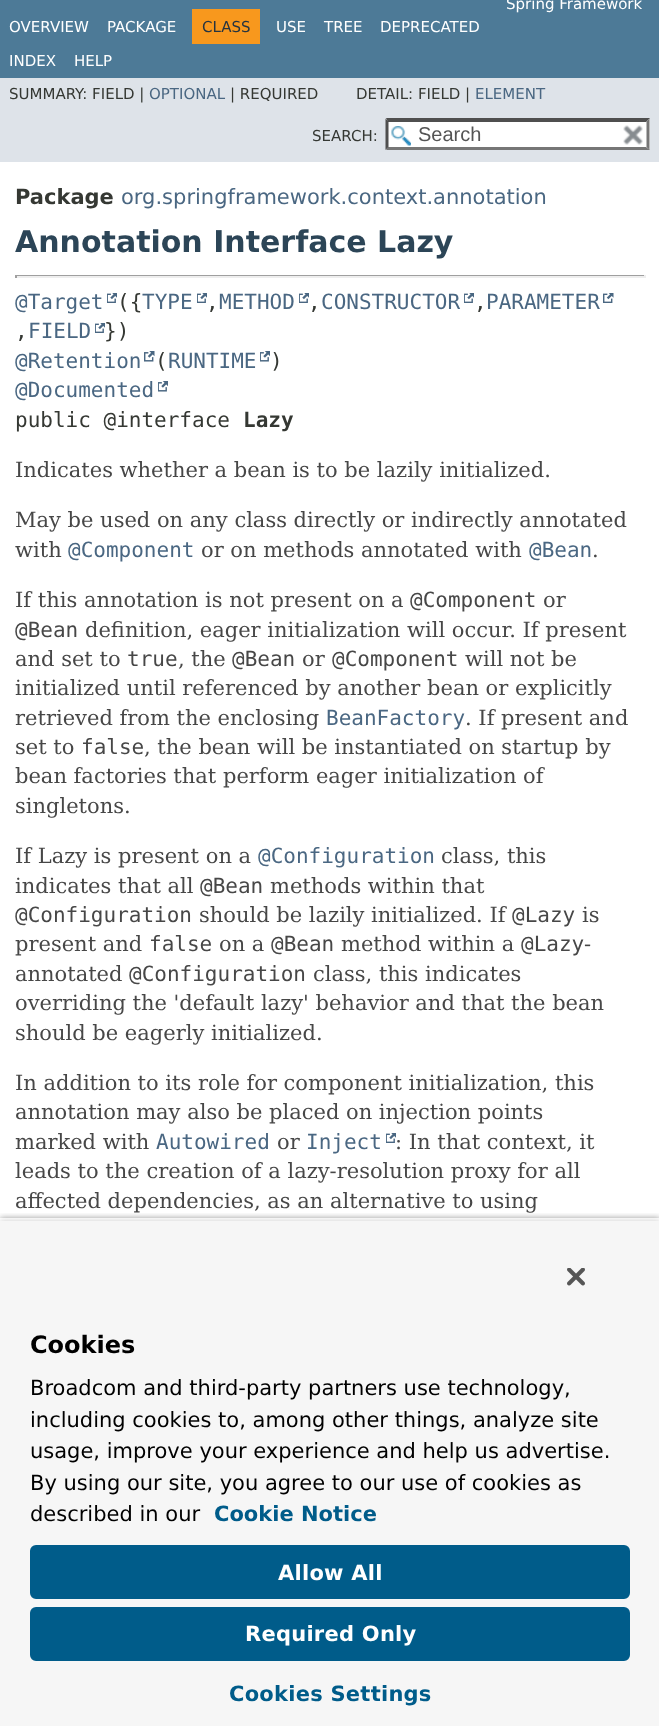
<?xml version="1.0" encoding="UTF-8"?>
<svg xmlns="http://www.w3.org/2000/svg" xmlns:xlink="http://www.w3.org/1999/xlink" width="659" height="1726">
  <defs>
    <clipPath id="clip1"><rect x="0" y="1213" width="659" height="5" /></clipPath>
  </defs>
  <rect width="100%" height="100%" fill="#ffffff" />
  <rect width="659" height="78" fill="#4d7a97" />
  <rect x="192" y="9" width="68" height="35" fill="#f8981d" />
  <rect y="78" width="659" height="84" fill="#dee3e9" />
  <rect x="386" y="119" width="264" height="31" fill="#ffffff" />
  <image x="391" y="126" width="20" height="20" xlink:href="image1.png" />
  <path d="M 386 118 h 264 l -4 4 h -258 z" fill="#4f4f4f" />
  <path d="M 649.5 118.5 v 31.5 l -3 -3 v -25.5 z" fill="#767676" />
  <path d="M 650 150 h -264 l 2 -3 h 258 z" fill="#767676" />
  <path d="M 385.5 150 v -31.5 l 3 3 v 25.5 z" fill="#4f4f4f" />
  <image x="623" y="125" width="20" height="20" xlink:href="image2.png" />
  <rect x="15" y="275" width="630" height="1" fill="#9f9f9f" />
  <rect x="644" y="275" width="2" height="3" fill="#eeeeee" />
  <rect x="15" y="276" width="630" height="2" fill="#eeeeee" />
  <rect x="15" y="275" width="2" height="3" fill="#9f9f9f" />
  <image x="107" y="293" width="10" height="10" xlink:href="image3.png" />
  <image x="197" y="293" width="10" height="10" xlink:href="image3.png" />
  <image x="299" y="293" width="10" height="10" xlink:href="image3.png" />
  <image x="464" y="293" width="10" height="10" xlink:href="image3.png" />
  <image x="603" y="293" width="11" height="10" xlink:href="image4.png" />
  <image x="95" y="323" width="10" height="10" xlink:href="image3.png" />
  <image x="144" y="351" width="11" height="11" xlink:href="image5.png" />
  <image x="260" y="351" width="10" height="11" xlink:href="image6.png" />
  <image x="158" y="381" width="10" height="11" xlink:href="image6.png" />
  <image x="386" y="1133" width="10" height="10" xlink:href="image3.png" />
  <g clip-path="url(#clip1)">
    <rect y="1218" width="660" height="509" fill="#000000" fill-opacity="0.35" filter="blur(3px)" />
  </g>
  <rect y="1221" width="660" height="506" fill="#000000" fill-opacity="0.2" filter="blur(3px)" />
  <rect y="1221" width="659" height="505" fill="#f6f6f6" />
  <image x="567" y="1268" width="18" height="18" xlink:href="image7.png" />
  <rect x="31" y="1546" width="598" height="52" rx="5" fill="#005c8a" stroke="#005c8a" stroke-width="2" />
  <rect x="31" y="1608" width="598" height="52" rx="5" fill="#005c8a" stroke="#005c8a" stroke-width="2" />
  <text x="506" y="9" style="font-family: DejaVu Sans; font-size: 15px; fill: #ffffff">Spring Framework</text>
  <text x="9" y="32" style="font-family: DejaVu Sans; font-size: 15px; fill: #ffffff">OVERVIEW</text>
  <text x="107" y="32" style="font-family: DejaVu Sans; font-size: 15px; fill: #ffffff">PACKAGE</text>
  <text x="202" y="32" style="font-family: DejaVu Sans; font-size: 15px; fill: #253441">CLASS</text>
  <text x="276" y="32" style="font-family: DejaVu Sans; font-size: 15px; fill: #ffffff">USE</text>
  <text x="324" y="32" style="font-family: DejaVu Sans; font-size: 15px; fill: #ffffff">TREE</text>
  <text x="380" y="32" style="font-family: DejaVu Sans; font-size: 15px; fill: #ffffff">DEPRECATED</text>
  <text x="9" y="66" style="font-family: DejaVu Sans; font-size: 15px; fill: #ffffff">INDEX</text>
  <text x="74" y="66" style="font-family: DejaVu Sans; font-size: 15px; fill: #ffffff">HELP</text>
  <text x="9" y="99" style="font-family: DejaVu Sans; font-size: 15px; fill: #353833">SUMMARY: FIELD |</text>
  <text x="149" y="99" style="font-family: DejaVu Sans; font-size: 15px; fill: #4a6782">OPTIONAL</text>
  <text x="230" y="99" style="font-family: DejaVu Sans; font-size: 15px; fill: #353833">| REQUIRED</text>
  <text x="356" y="99" style="font-family: DejaVu Sans; font-size: 15px; fill: #353833">DETAIL: FIELD |</text>
  <text x="475" y="99" style="font-family: DejaVu Sans; font-size: 15px; fill: #4a6782">ELEMENT</text>
  <text x="312" y="141" style="font-family: DejaVu Sans; font-size: 15px; fill: #353833">SEARCH:</text>
  <text x="418" y="141" style="font-family: Liberation Sans; font-size: 20px; fill: #545454">Search</text>
  <text x="15" y="204" style="font-family: DejaVu Sans; font-size: 21px; font-weight: bold; fill: #353833">Package</text>
  <text x="121" y="204" style="font-family: DejaVu Sans; font-size: 21px; fill: #4a6782">org.springframework.context.annotation</text>
  <text x="15" y="252" style="font-family: DejaVu Sans; font-size: 30px; font-weight: bold; fill: #2c4557">Annotation Interface Lazy</text>
  <text x="15" y="309" style="font-family: DejaVu Sans Mono; font-size: 21px; fill: #4a6782">@Target</text>
  <text x="117" y="309" style="font-family: DejaVu Sans Mono; font-size: 21px; fill: #353833">({</text>
  <text x="142" y="309" style="font-family: DejaVu Sans Mono; font-size: 21px; fill: #4a6782">TYPE</text>
  <text x="206" y="309" style="font-family: DejaVu Sans Mono; font-size: 21px; fill: #353833">,</text>
  <text x="219" y="309" style="font-family: DejaVu Sans Mono; font-size: 21px; fill: #4a6782">METHOD</text>
  <text x="308" y="309" style="font-family: DejaVu Sans Mono; font-size: 21px; fill: #353833">,</text>
  <text x="321" y="309" style="font-family: DejaVu Sans Mono; font-size: 21px; fill: #4a6782">CONSTRUCTOR</text>
  <text x="474" y="309" style="font-family: DejaVu Sans Mono; font-size: 21px; fill: #353833">,</text>
  <text x="486" y="309" style="font-family: DejaVu Sans Mono; font-size: 21px; fill: #4a6782">PARAMETER</text>
  <text x="15" y="338" style="font-family: DejaVu Sans Mono; font-size: 21px; fill: #353833">,</text>
  <text x="28" y="338" style="font-family: DejaVu Sans Mono; font-size: 21px; fill: #4a6782">FIELD</text>
  <text x="104" y="338" style="font-family: DejaVu Sans Mono; font-size: 21px; fill: #353833">})</text>
  <text x="15" y="368" style="font-family: DejaVu Sans Mono; font-size: 21px; fill: #4a6782">@Retention</text>
  <text x="155" y="368" style="font-family: DejaVu Sans Mono; font-size: 21px; fill: #353833">(</text>
  <text x="168" y="368" style="font-family: DejaVu Sans Mono; font-size: 21px; fill: #4a6782">RUNTIME</text>
  <text x="270" y="368" style="font-family: DejaVu Sans Mono; font-size: 21px; fill: #353833">)</text>
  <text x="15" y="397" style="font-family: DejaVu Sans Mono; font-size: 21px; fill: #4a6782">@Documented</text>
  <text x="15" y="427" style="font-family: DejaVu Sans Mono; font-size: 21px; fill: #353833">public @interface</text>
  <text x="243" y="427" style="font-family: DejaVu Sans Mono; font-size: 21px; font-weight: bold; fill: #353833">Lazy</text>
  <text x="15" y="477" style="font-family: DejaVu Serif; font-size: 21px; fill: #474747">Indicates whether a bean is to be lazily initialized.</text>
  <text x="15" y="527" style="font-family: DejaVu Serif; font-size: 21px; fill: #474747">May be used on any class directly or indirectly annotated</text>
  <text x="15" y="557" style="font-family: DejaVu Serif; font-size: 21px; fill: #474747">with</text>
  <text x="68" y="557" style="font-family: DejaVu Sans Mono; font-size: 21px; fill: #4a6782">@Component</text>
  <text x="201" y="557" style="font-family: DejaVu Serif; font-size: 21px; fill: #474747">or on methods annotated with</text>
  <text x="529" y="557" style="font-family: DejaVu Sans Mono; font-size: 21px; fill: #4a6782">@Bean</text>
  <text x="592" y="557" style="font-family: DejaVu Serif; font-size: 21px; fill: #474747">.</text>
  <text x="15" y="607" style="font-family: DejaVu Serif; font-size: 21px; fill: #474747">If this annotation is not present on a</text>
  <text x="410" y="607" style="font-family: DejaVu Sans Mono; font-size: 21px; fill: #474747">@Component</text>
  <text x="543" y="607" style="font-family: DejaVu Serif; font-size: 21px; fill: #474747">or</text>
  <text x="15" y="637" style="font-family: DejaVu Sans Mono; font-size: 21px; fill: #474747">@Bean</text>
  <text x="85" y="637" style="font-family: DejaVu Serif; font-size: 21px; fill: #474747">definition, eager initialization will occur. If present</text>
  <text x="15" y="666" style="font-family: DejaVu Serif; font-size: 21px; fill: #474747">and set to</text>
  <text x="127" y="666" style="font-family: DejaVu Sans Mono; font-size: 21px; fill: #474747">true</text>
  <text x="178" y="666" style="font-family: DejaVu Serif; font-size: 21px; fill: #474747">, the</text>
  <text x="232" y="666" style="font-family: DejaVu Sans Mono; font-size: 21px; fill: #474747">@Bean</text>
  <text x="302" y="666" style="font-family: DejaVu Serif; font-size: 21px; fill: #474747">or</text>
  <text x="332" y="666" style="font-family: DejaVu Sans Mono; font-size: 21px; fill: #474747">@Component</text>
  <text x="465" y="666" style="font-family: DejaVu Serif; font-size: 21px; fill: #474747">will not be</text>
  <text x="15" y="695" style="font-family: DejaVu Serif; font-size: 21px; fill: #474747">initialized until referenced by another bean or explicitly</text>
  <text x="15" y="725" style="font-family: DejaVu Serif; font-size: 21px; fill: #474747">retrieved from the enclosing</text>
  <text x="326" y="725" style="font-family: DejaVu Sans Mono; font-size: 21px; fill: #4a6782">BeanFactory</text>
  <text x="465" y="725" style="font-family: DejaVu Serif; font-size: 21px; fill: #474747">. If present and</text>
  <text x="15" y="754" style="font-family: DejaVu Serif; font-size: 21px; fill: #474747">set to</text>
  <text x="81" y="754" style="font-family: DejaVu Sans Mono; font-size: 21px; fill: #474747">false</text>
  <text x="144" y="754" style="font-family: DejaVu Serif; font-size: 21px; fill: #474747">, the bean will be instantiated on startup by</text>
  <text x="15" y="783" style="font-family: DejaVu Serif; font-size: 21px; fill: #474747">bean factories that perform eager initialization of</text>
  <text x="15" y="813" style="font-family: DejaVu Serif; font-size: 21px; fill: #474747">singletons.</text>
  <text x="15" y="863" style="font-family: DejaVu Serif; font-size: 21px; fill: #474747">If Lazy is present on a</text>
  <text x="258" y="863" style="font-family: DejaVu Sans Mono; font-size: 21px; fill: #4a6782">@Configuration</text>
  <text x="441" y="863" style="font-family: DejaVu Serif; font-size: 21px; fill: #474747">class, this</text>
  <text x="15" y="893" style="font-family: DejaVu Serif; font-size: 21px; fill: #474747">indicates that all</text>
  <text x="200" y="893" style="font-family: DejaVu Sans Mono; font-size: 21px; fill: #474747">@Bean</text>
  <text x="270" y="893" style="font-family: DejaVu Serif; font-size: 21px; fill: #474747">methods within that</text>
  <text x="15" y="922" style="font-family: DejaVu Sans Mono; font-size: 21px; fill: #474747">@Configuration</text>
  <text x="199" y="922" style="font-family: DejaVu Serif; font-size: 21px; fill: #474747">should be lazily initialized. If</text>
  <text x="512" y="922" style="font-family: DejaVu Sans Mono; font-size: 21px; fill: #474747">@Lazy</text>
  <text x="582" y="922" style="font-family: DejaVu Serif; font-size: 21px; fill: #474747">is</text>
  <text x="15" y="951" style="font-family: DejaVu Serif; font-size: 21px; fill: #474747">present and</text>
  <text x="149" y="951" style="font-family: DejaVu Sans Mono; font-size: 21px; fill: #474747">false</text>
  <text x="219" y="951" style="font-family: DejaVu Serif; font-size: 21px; fill: #474747">on a</text>
  <text x="271" y="951" style="font-family: DejaVu Sans Mono; font-size: 21px; fill: #474747">@Bean</text>
  <text x="341" y="951" style="font-family: DejaVu Serif; font-size: 21px; fill: #474747">method within a</text>
  <text x="521" y="951" style="font-family: DejaVu Sans Mono; font-size: 21px; fill: #474747">@Lazy</text>
  <text x="584" y="951" style="font-family: DejaVu Serif; font-size: 21px; fill: #474747">-</text>
  <text x="15" y="981" style="font-family: DejaVu Serif; font-size: 21px; fill: #474747">annotated</text>
  <text x="129" y="981" style="font-family: DejaVu Sans Mono; font-size: 21px; fill: #474747">@Configuration</text>
  <text x="313" y="981" style="font-family: DejaVu Serif; font-size: 21px; fill: #474747">class, this indicates</text>
  <text x="15" y="1010" style="font-family: DejaVu Serif; font-size: 21px; fill: #474747">overriding the 'default lazy' behavior and that the bean</text>
  <text x="15" y="1040" style="font-family: DejaVu Serif; font-size: 21px; fill: #474747">should be eagerly initialized.</text>
  <text x="15" y="1090" style="font-family: DejaVu Serif; font-size: 21px; fill: #474747">In addition to its role for component initialization, this</text>
  <text x="15" y="1119" style="font-family: DejaVu Serif; font-size: 21px; fill: #474747">annotation may also be placed on injection points</text>
  <text x="15" y="1149" style="font-family: DejaVu Serif; font-size: 21px; fill: #474747">marked with</text>
  <text x="156" y="1149" style="font-family: DejaVu Sans Mono; font-size: 21px; fill: #4a6782">Autowired</text>
  <text x="277" y="1149" style="font-family: DejaVu Serif; font-size: 21px; fill: #474747">or</text>
  <text x="306" y="1149" style="font-family: DejaVu Sans Mono; font-size: 21px; fill: #4a6782">Inject</text>
  <text x="395" y="1149" style="font-family: DejaVu Serif; font-size: 21px; fill: #474747">: In that context, it</text>
  <text x="15" y="1178" style="font-family: DejaVu Serif; font-size: 21px; fill: #474747">leads to the creation of a lazy-resolution proxy for all</text>
  <text x="15" y="1208" style="font-family: DejaVu Serif; font-size: 21px; fill: #474747">affected dependencies, as an alternative to using</text>
  <text x="30" y="1353" style="font-family: DejaVu Sans; font-size: 24px; font-weight: bold; fill: #000000">Cookies</text>
  <text x="30" y="1395" style="font-family: DejaVu Sans; font-size: 21px; fill: #000000">Broadcom and third-party partners use technology,</text>
  <text x="30" y="1427" style="font-family: DejaVu Sans; font-size: 21px; fill: #000000">including cookies to, among other things, analyze site</text>
  <text x="30" y="1458" style="font-family: DejaVu Sans; font-size: 21px; fill: #000000">usage, improve your experience and help us advertise.</text>
  <text x="30" y="1490" style="font-family: DejaVu Sans; font-size: 21px; fill: #000000">By using our site, you agree to our use of cookies as</text>
  <text x="30" y="1521" style="font-family: DejaVu Sans; font-size: 21px; fill: #000000">described in our</text>
  <text x="214" y="1521" style="font-family: DejaVu Sans; font-size: 21px; font-weight: bold; fill: #005c8a">Cookie Notice</text>
  <text x="278" y="1580" style="font-family: DejaVu Sans; font-size: 21px; font-weight: bold; letter-spacing: 0.25px; fill: #ffffff">Allow All</text>
  <text x="245" y="1641" style="font-family: DejaVu Sans; font-size: 21px; font-weight: bold; letter-spacing: 0.25px; fill: #ffffff">Required Only</text>
  <text x="229" y="1701" style="font-family: DejaVu Sans; font-size: 21px; font-weight: bold; letter-spacing: 0.25px; fill: #005c8a">Cookies Settings</text>
</svg>
